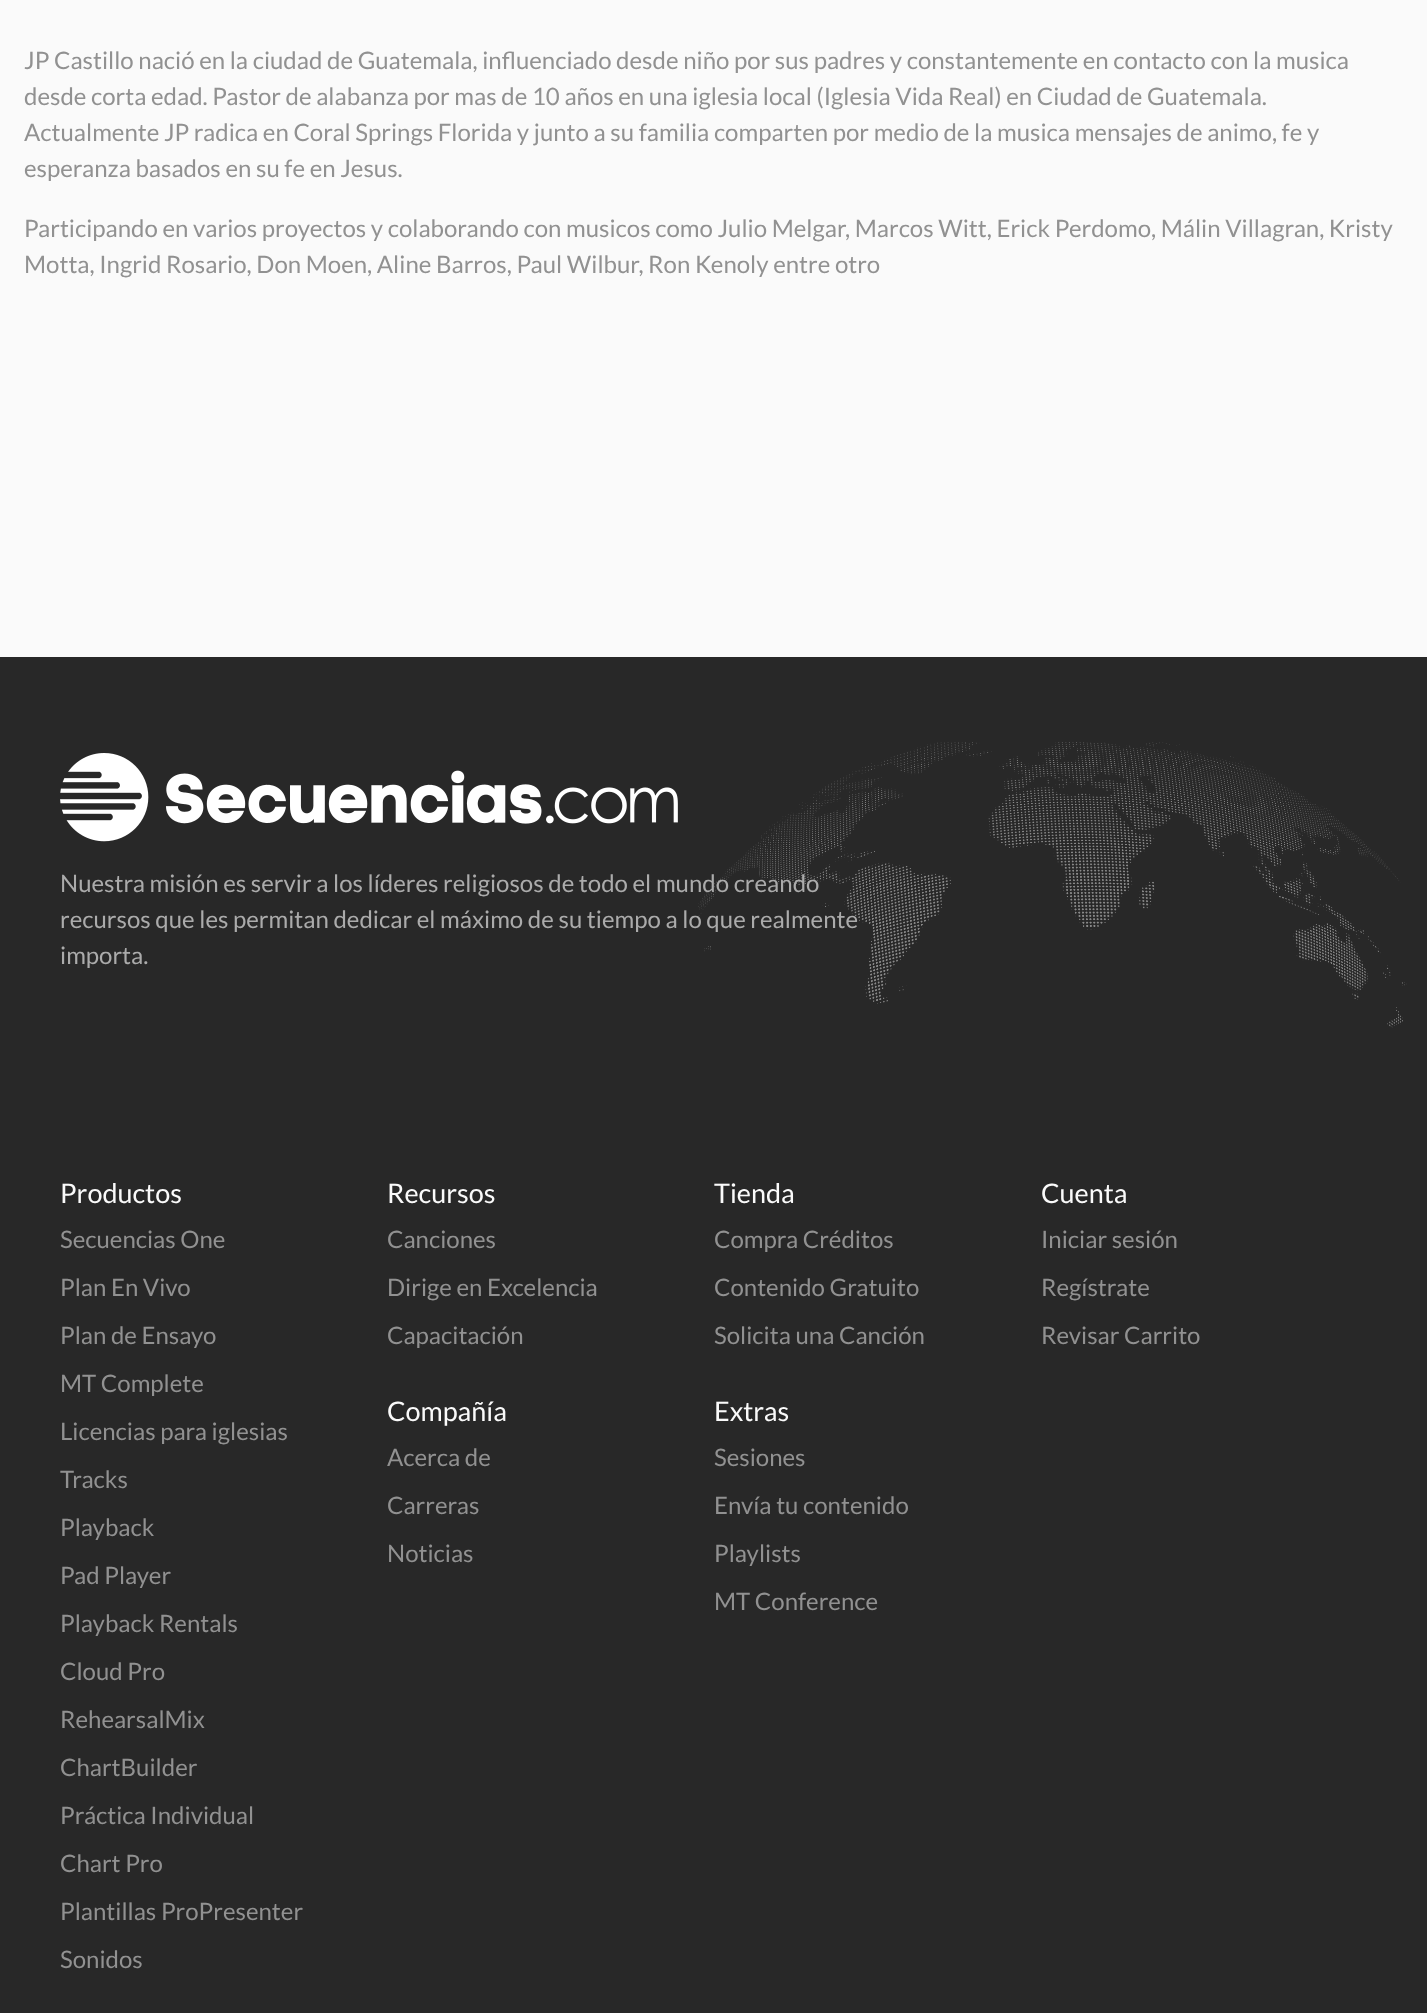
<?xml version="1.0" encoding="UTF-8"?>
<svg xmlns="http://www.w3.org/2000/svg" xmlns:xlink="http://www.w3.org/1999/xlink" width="1427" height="2013">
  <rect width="100%" height="100%" fill="#fafafa" />
  <rect y="657" width="1427" height="1356" fill="#282828" />
  <image x="695" y="742" width="712" height="286" xlink:href="image1.png" />
  <image x="60" y="753" width="618" height="89" xlink:href="image2.png" />
  <text x="24" y="69" style="font-family: Lato; font-size: 24px; fill: #919191">JP Castillo nació en la ciudad de Guatemala, influenciado desde niño por sus padres y constantemente en contacto con la musica</text>
  <text x="24" y="105" style="font-family: Lato; font-size: 24px; fill: #919191">desde corta edad. Pastor de alabanza por mas de 10 años en una iglesia local (Iglesia Vida Real) en Ciudad de Guatemala.</text>
  <text x="24" y="141" style="font-family: Lato; font-size: 24px; fill: #919191">Actualmente JP radica en Coral Springs Florida y junto a su familia comparten por medio de la musica mensajes de animo, fe y</text>
  <text x="24" y="177" style="font-family: Lato; font-size: 24px; fill: #919191">esperanza basados en su fe en Jesus.</text>
  <text x="24" y="237" style="font-family: Lato; font-size: 24px; fill: #919191">Participando en varios proyectos y colaborando con musicos como Julio Melgar, Marcos Witt, Erick Perdomo, Málin Villagran, Kristy</text>
  <text x="24" y="273" style="font-family: Lato; font-size: 24px; fill: #919191">Motta, Ingrid Rosario, Don Moen, Aline Barros, Paul Wilbur, Ron Kenoly entre otro</text>
  <text x="60" y="892" style="font-family: Lato; font-size: 24px; fill: #ababab">Nuestra misión es servir a los líderes religiosos de todo el mundo creando</text>
  <text x="60" y="928" style="font-family: Lato; font-size: 24px; fill: #ababab">recursos que les permitan dedicar el máximo de su tiempo a lo que realmente</text>
  <text x="60" y="964" style="font-family: Lato; font-size: 24px; fill: #ababab">importa.</text>
  <text x="60" y="1203" style="font-family: Lato; font-size: 27px; fill: #fafafa">Productos</text>
  <text x="60" y="1248" style="font-family: Lato; font-size: 24px; fill: #919191">Secuencias One</text>
  <text x="60" y="1296" style="font-family: Lato; font-size: 24px; fill: #919191">Plan En Vivo</text>
  <text x="60" y="1344" style="font-family: Lato; font-size: 24px; fill: #919191">Plan de Ensayo</text>
  <text x="60" y="1392" style="font-family: Lato; font-size: 24px; fill: #919191">MT Complete</text>
  <text x="60" y="1440" style="font-family: Lato; font-size: 24px; fill: #919191">Licencias para iglesias</text>
  <text x="60" y="1488" style="font-family: Lato; font-size: 24px; fill: #919191">Tracks</text>
  <text x="60" y="1536" style="font-family: Lato; font-size: 24px; fill: #919191">Playback</text>
  <text x="60" y="1584" style="font-family: Lato; font-size: 24px; fill: #919191">Pad Player</text>
  <text x="60" y="1632" style="font-family: Lato; font-size: 24px; fill: #919191">Playback Rentals</text>
  <text x="60" y="1680" style="font-family: Lato; font-size: 24px; fill: #919191">Cloud Pro</text>
  <text x="60" y="1728" style="font-family: Lato; font-size: 24px; fill: #919191">RehearsalMix</text>
  <text x="60" y="1776" style="font-family: Lato; font-size: 24px; fill: #919191">ChartBuilder</text>
  <text x="60" y="1824" style="font-family: Lato; font-size: 24px; fill: #919191">Práctica Individual</text>
  <text x="60" y="1872" style="font-family: Lato; font-size: 24px; fill: #919191">Chart Pro</text>
  <text x="60" y="1920" style="font-family: Lato; font-size: 24px; fill: #919191">Plantillas ProPresenter</text>
  <text x="60" y="1968" style="font-family: Lato; font-size: 24px; fill: #919191">Sonidos</text>
  <text x="387" y="1203" style="font-family: Lato; font-size: 27px; fill: #fafafa">Recursos</text>
  <text x="387" y="1248" style="font-family: Lato; font-size: 24px; fill: #919191">Canciones</text>
  <text x="387" y="1296" style="font-family: Lato; font-size: 24px; fill: #919191">Dirige en Excelencia</text>
  <text x="387" y="1344" style="font-family: Lato; font-size: 24px; fill: #919191">Capacitación</text>
  <text x="387" y="1421" style="font-family: Lato; font-size: 27px; fill: #fafafa">Compañía</text>
  <text x="387" y="1466" style="font-family: Lato; font-size: 24px; fill: #919191">Acerca de</text>
  <text x="387" y="1514" style="font-family: Lato; font-size: 24px; fill: #919191">Carreras</text>
  <text x="387" y="1562" style="font-family: Lato; font-size: 24px; fill: #919191">Noticias</text>
  <text x="714" y="1203" style="font-family: Lato; font-size: 27px; fill: #fafafa">Tienda</text>
  <text x="714" y="1248" style="font-family: Lato; font-size: 24px; fill: #919191">Compra Créditos</text>
  <text x="714" y="1296" style="font-family: Lato; font-size: 24px; fill: #919191">Contenido Gratuito</text>
  <text x="714" y="1344" style="font-family: Lato; font-size: 24px; fill: #919191">Solicita una Canción</text>
  <text x="714" y="1421" style="font-family: Lato; font-size: 27px; fill: #fafafa">Extras</text>
  <text x="714" y="1466" style="font-family: Lato; font-size: 24px; fill: #919191">Sesiones</text>
  <text x="714" y="1514" style="font-family: Lato; font-size: 24px; fill: #919191">Envía tu contenido</text>
  <text x="714" y="1562" style="font-family: Lato; font-size: 24px; fill: #919191">Playlists</text>
  <text x="714" y="1610" style="font-family: Lato; font-size: 24px; fill: #919191">MT Conference</text>
  <text x="1041" y="1203" style="font-family: Lato; font-size: 27px; fill: #fafafa">Cuenta</text>
  <text x="1041" y="1248" style="font-family: Lato; font-size: 24px; fill: #919191">Iniciar sesión</text>
  <text x="1041" y="1296" style="font-family: Lato; font-size: 24px; fill: #919191">Regístrate</text>
  <text x="1041" y="1344" style="font-family: Lato; font-size: 24px; fill: #919191">Revisar Carrito</text>
</svg>
